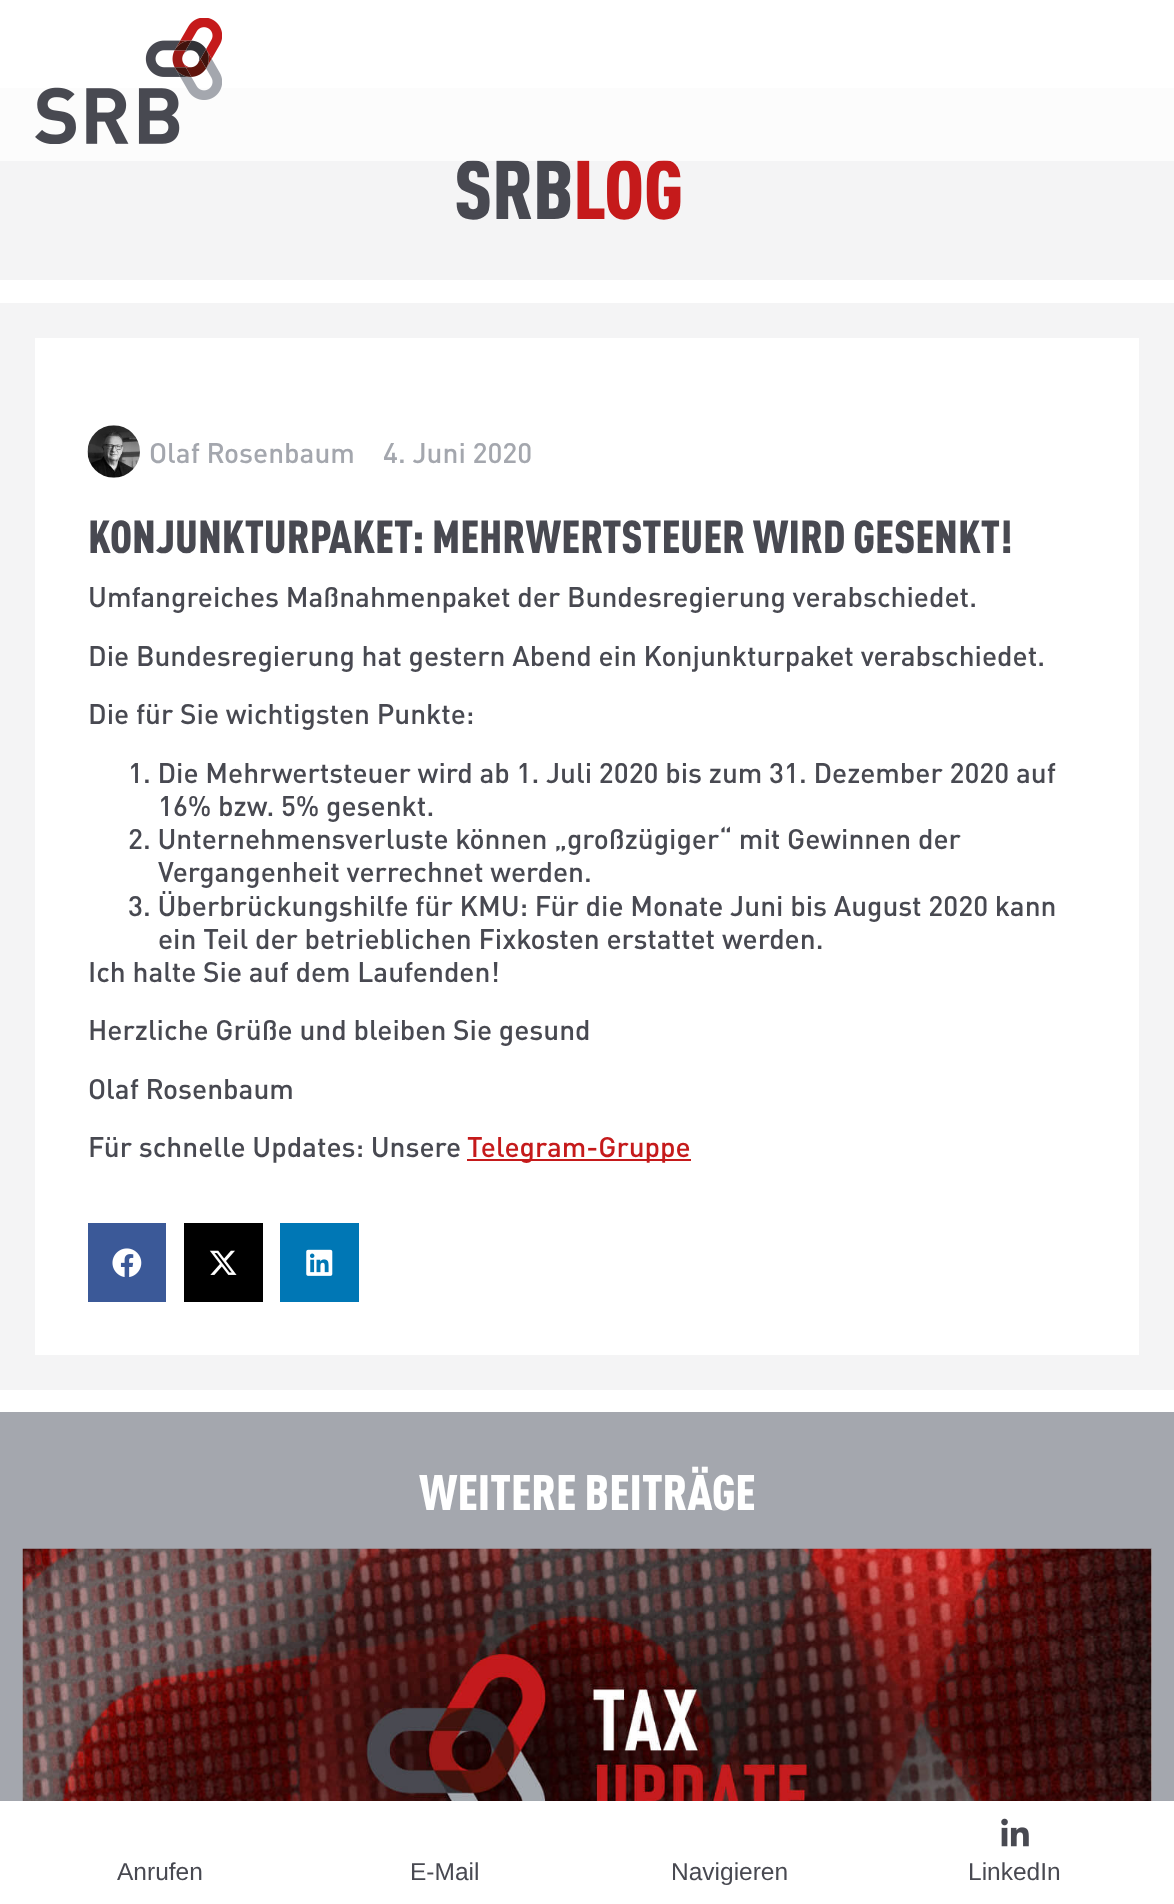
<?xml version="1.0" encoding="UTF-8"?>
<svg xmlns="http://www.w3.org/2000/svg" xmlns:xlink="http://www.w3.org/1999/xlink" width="1174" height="1904">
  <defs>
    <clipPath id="clip1"><rect x="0" y="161" width="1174" height="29" /></clipPath>
  </defs>
  <rect width="100%" height="100%" fill="#ffffff" />
  <rect y="88" width="1174" height="192" fill="#f4f4f5" />
  <rect y="303" width="1174" height="1087" fill="#f4f4f5" />
  <rect x="35" y="338" width="1104" height="1017" fill="#ffffff" />
  <image x="87" y="425" width="53" height="53" xlink:href="image1.png" />
  <rect x="467" y="1159" width="224" height="2" fill="#c51a1b" />
  <rect x="88" y="1223" width="78" height="79" fill="#3b5998" />
  <image x="112" y="1248" width="30" height="29" xlink:href="image2.png" />
  <rect x="184" y="1223" width="79" height="79" fill="#000000" />
  <image x="209" y="1250" width="28" height="25" xlink:href="image3.png" />
  <rect x="280" y="1223" width="79" height="79" fill="#0077b5" />
  <image x="306" y="1249" width="27" height="27" xlink:href="image4.png" />
  <rect y="1412" width="1174" height="389" fill="#a4a7ae" />
  <rect x="1151" y="1549" width="1" height="252" fill="#ffffff" />
  <image x="22" y="1548" width="1130" height="253" xlink:href="image5.png" />
  <g clip-path="url(#clip1)">
    <rect y="7" width="1174" height="161" fill="#ffffff" fill-opacity="0.1" filter="blur(26px)" />
  </g>
  <image x="1001" y="1818" width="28" height="29" xlink:href="image7.png" />
  <text x="454" y="219" style="font-family: 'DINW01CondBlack'; font-size: 82px; font-weight: 900; letter-spacing: -0.5px; fill: #484951">SRB</text>
  <text x="573" y="219" style="font-family: 'DINW01CondBlack'; font-size: 82px; font-weight: 900; letter-spacing: -0.5px; fill: #c51a1b">LOG</text>
  <text x="149" y="463" style="font-family: DIN; font-size: 28px; font-weight: 500; fill: #a4a7ae">Olaf Rosenbaum</text>
  <text x="383" y="463" style="font-family: DIN; font-size: 28px; font-weight: 500; fill: #a4a7ae">4. Juni 2020</text>
  <text x="88" y="553" style="font-family: 'DINW01CondBlack'; font-size: 45.5px; font-weight: 900; fill: #484951">KONJUNKTURPAKET: MEHRWERTSTEUER WIRD GESENKT!</text>
  <text x="88" y="607" style="font-family: DIN; font-size: 28px; font-weight: 500; fill: #484951">Umfangreiches Maßnahmenpaket der Bundesregierung verabschiedet.</text>
  <text x="88" y="666" style="font-family: DIN; font-size: 28px; font-weight: 500; fill: #484951">Die Bundesregierung hat gestern Abend ein Konjunkturpaket verabschiedet.</text>
  <text x="88" y="724" style="font-family: DIN; font-size: 28px; font-weight: 500; fill: #484951">Die für Sie wichtigsten Punkte:</text>
  <text x="128" y="783" style="font-family: DIN; font-size: 28px; font-weight: 500; fill: #484951">1. Die Mehrwertsteuer wird ab 1. Juli 2020 bis zum 31. Dezember 2020 auf</text>
  <text x="158" y="816" style="font-family: DIN; font-size: 28px; font-weight: 500; fill: #484951">16% bzw. 5% gesenkt.</text>
  <text x="128" y="849" style="font-family: DIN; font-size: 28px; font-weight: 500; fill: #484951">2. Unternehmensverluste können „großzügiger“ mit Gewinnen der</text>
  <text x="158" y="882" style="font-family: DIN; font-size: 28px; font-weight: 500; fill: #484951">Vergangenheit verrechnet werden.</text>
  <text x="128" y="916" style="font-family: DIN; font-size: 28px; font-weight: 500; fill: #484951">3. Überbrückungshilfe für KMU: Für die Monate Juni bis August 2020 kann</text>
  <text x="158" y="949" style="font-family: DIN; font-size: 28px; font-weight: 500; fill: #484951">ein Teil der betrieblichen Fixkosten erstattet werden.</text>
  <text x="88" y="982" style="font-family: DIN; font-size: 28px; font-weight: 500; fill: #484951">Ich halte Sie auf dem Laufenden!</text>
  <text x="88" y="1040" style="font-family: DIN; font-size: 28px; font-weight: 500; fill: #484951">Herzliche Grüße und bleiben Sie gesund</text>
  <text x="88" y="1099" style="font-family: DIN; font-size: 28px; font-weight: 500; fill: #484951">Olaf Rosenbaum</text>
  <text x="88" y="1157" style="font-family: DIN; font-size: 28px; font-weight: 500; fill: #484951">Für schnelle Updates: Unsere</text>
  <text x="467" y="1157" style="font-family: DIN; font-size: 28px; font-weight: 500; fill: #c51a1b">Telegram-Gruppe</text>
  <text x="419" y="1510" style="font-family: 'DINW01CondBlack'; font-size: 49px; font-weight: 900; fill: #ffffff">WEITERE BEITRÄGE</text>
  <rect y="88" width="1174" height="73" fill="#ffffff" fill-opacity="0.7" />
  <image x="35" y="18" width="187" height="126" xlink:href="image6.png" />
  <text x="117" y="1880" style="font-family: Liberation Sans; font-size: 24.5px; fill: #484951">Anrufen</text>
  <text x="410" y="1880" style="font-family: Liberation Sans; font-size: 24.5px; fill: #484951">E-Mail</text>
  <text x="671" y="1880" style="font-family: Liberation Sans; font-size: 24.5px; fill: #484951">Navigieren</text>
  <text x="968" y="1880" style="font-family: Liberation Sans; font-size: 24.5px; fill: #484951">LinkedIn</text>
</svg>
